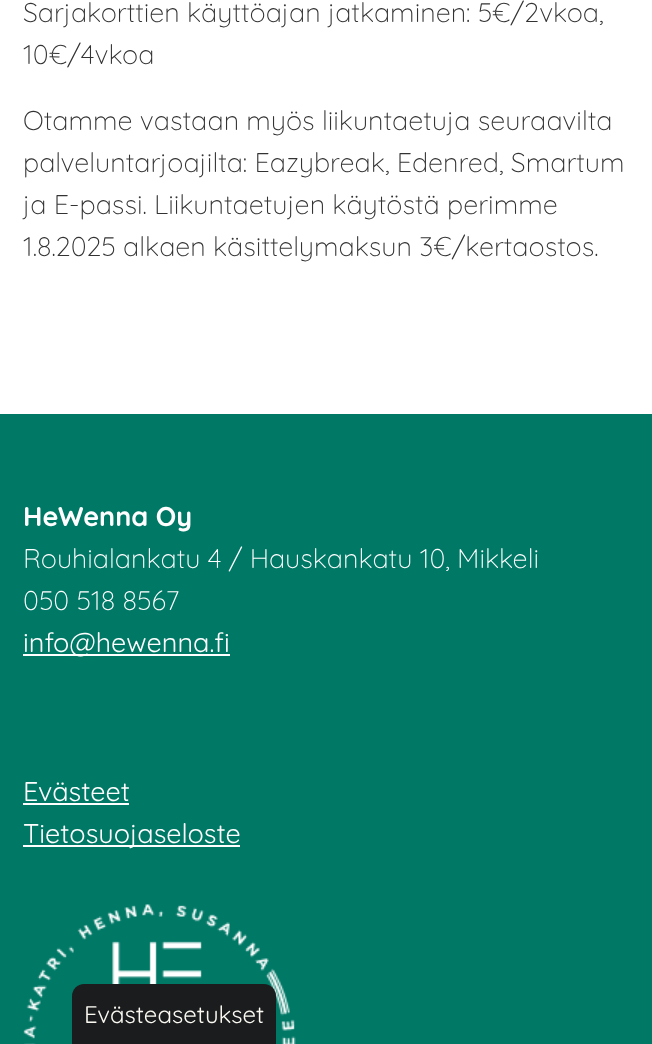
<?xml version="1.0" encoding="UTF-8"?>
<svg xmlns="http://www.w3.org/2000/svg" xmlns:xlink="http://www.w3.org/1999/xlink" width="652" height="1044">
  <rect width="100%" height="100%" fill="#ffffff" />
  <rect y="414" width="652" height="630" fill="#007866" />
  <rect x="23" y="654" width="207" height="2" fill="#ffffff" />
  <rect x="23" y="803" width="106" height="2" fill="#ffffff" />
  <rect x="23" y="845" width="217" height="2" fill="#ffffff" />
  <image x="23" y="904" width="273" height="140" xlink:href="image1.png" />
  <path d="M 84 984 h 180 c 6.5 0 12 5.5 12 12 v 48 h -204 v -48 c 0 -6.5 5.5 -12 12 -12 z" fill="#1b1c1e" />
  <text x="23" y="22" style="font-family: Quicksand; font-size: 27px; font-weight: 300; fill: #333333">Sarjakorttien käyttöajan jatkaminen: 5€/2vkoa,</text>
  <text x="23" y="64" style="font-family: Quicksand; font-size: 27px; font-weight: 300; fill: #333333">10€/4vkoa</text>
  <text x="23" y="130" style="font-family: Quicksand; font-size: 27px; font-weight: 300; fill: #333333">Otamme vastaan myös liikuntaetuja seuraavilta</text>
  <text x="23" y="172" style="font-family: Quicksand; font-size: 27px; font-weight: 300; fill: #333333">palveluntarjoajilta: Eazybreak, Edenred, Smartum</text>
  <text x="23" y="214" style="font-family: Quicksand; font-size: 27px; font-weight: 300; fill: #333333">ja E-passi. Liikuntaetujen käytöstä perimme</text>
  <text x="23" y="256" style="font-family: Quicksand; font-size: 27px; font-weight: 300; fill: #333333">1.8.2025 alkaen käsittelymaksun 3€/kertaostos.</text>
  <text x="23" y="526" style="font-family: Quicksand; font-size: 27px; font-weight: bold; fill: #ffffff">HeWenna Oy</text>
  <text x="23" y="568" style="font-family: Quicksand; font-size: 27px; font-weight: 300; fill: #ffffff">Rouhialankatu 4 / Hauskankatu 10, Mikkeli</text>
  <text x="23" y="610" style="font-family: Quicksand; font-size: 27px; font-weight: 300; fill: #ffffff">050 518 8567</text>
  <text x="23" y="652" style="font-family: Quicksand; font-size: 27px; fill: #ffffff">info@hewenna.fi</text>
  <text x="23" y="801" style="font-family: Quicksand; font-size: 27px; fill: #ffffff">Evästeet</text>
  <text x="23" y="843" style="font-family: Quicksand; font-size: 27px; fill: #ffffff">Tietosuojaseloste</text>
  <text x="84" y="1023" style="font-family: Quicksand; font-size: 24px; fill: #fbf9f2">Evästeasetukset</text>
</svg>
